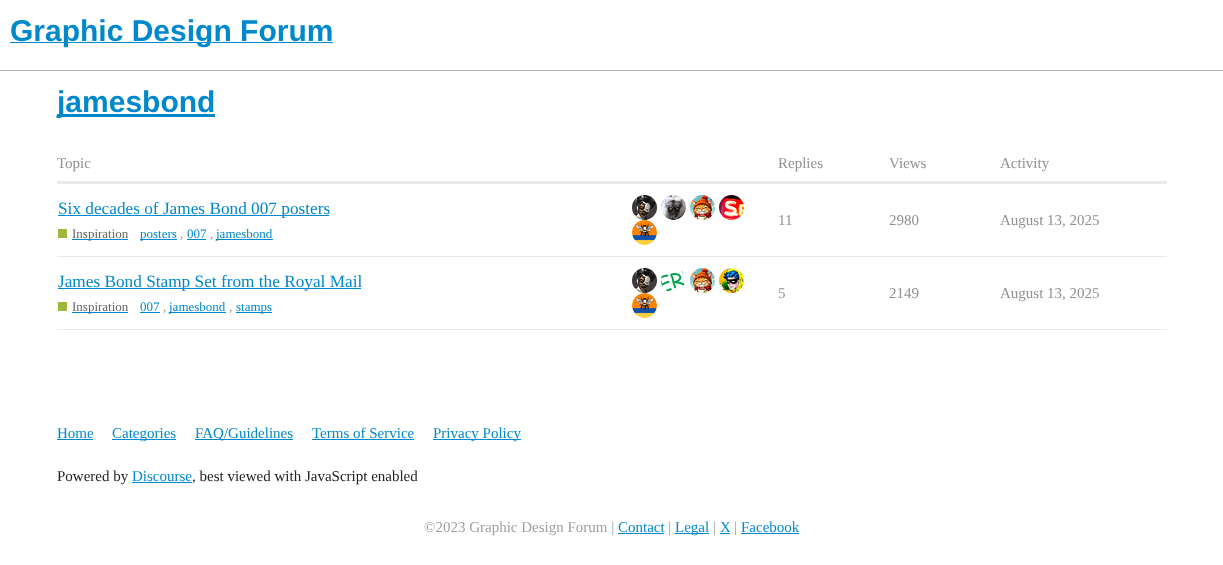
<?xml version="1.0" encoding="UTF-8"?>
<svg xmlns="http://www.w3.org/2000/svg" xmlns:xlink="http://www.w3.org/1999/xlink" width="1223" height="565">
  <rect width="100%" height="100%" fill="#ffffff" />
  <rect y="70" width="1223" height="1" fill="#afafaf" />
  <rect x="10" y="42" width="323" height="1" fill="#0088cc" />
  <rect x="57" y="114" width="158" height="3" fill="#0088cc" />
  <rect x="57" y="181" width="1110" height="3" fill="#e9e9e9" />
  <rect x="57" y="256" width="1110" height="1" fill="#e9e9e9" />
  <rect x="58" y="215" width="271" height="1" fill="#0088cc" />
  <rect x="58" y="229" width="9" height="9" fill="#9eb83b" />
  <rect x="72" y="239" width="56" height="1" fill="#0088cc" />
  <rect x="140" y="239" width="37" height="1" fill="#0088cc" />
  <rect x="187" y="239" width="19" height="1" fill="#0088cc" />
  <rect x="216" y="239" width="57" height="1" fill="#0088cc" />
  <image x="632" y="195" width="25" height="25" xlink:href="image1.png" />
  <image x="661" y="195" width="25" height="25" xlink:href="image2.png" />
  <image x="690" y="195" width="25" height="25" xlink:href="image3.png" />
  <image x="719" y="195" width="25" height="25" xlink:href="image4.png" />
  <image x="632" y="220" width="25" height="25" xlink:href="image5.png" />
  <rect x="57" y="329" width="1110" height="1" fill="#e9e9e9" />
  <rect x="58" y="288" width="303" height="1" fill="#0088cc" />
  <rect x="58" y="302" width="9" height="9" fill="#9eb83b" />
  <rect x="72" y="312" width="56" height="1" fill="#0088cc" />
  <rect x="140" y="312" width="20" height="1" fill="#0088cc" />
  <rect x="169" y="312" width="57" height="1" fill="#0088cc" />
  <rect x="236" y="312" width="36" height="1" fill="#0088cc" />
  <image x="632" y="268" width="25" height="25" xlink:href="image1.png" />
  <image x="661" y="270" width="25" height="23" xlink:href="image6.png" />
  <image x="690" y="268" width="25" height="25" xlink:href="image3.png" />
  <image x="719" y="268" width="25" height="25" xlink:href="image7.png" />
  <image x="632" y="293" width="25" height="25" xlink:href="image5.png" />
  <rect x="57" y="439" width="36" height="1" fill="#0088cc" />
  <rect x="112" y="439" width="64" height="1" fill="#0088cc" />
  <rect x="195" y="439" width="98" height="1" fill="#0088cc" />
  <rect x="312" y="439" width="102" height="1" fill="#0088cc" />
  <rect x="433" y="439" width="88" height="1" fill="#0088cc" />
  <rect x="132" y="482" width="60" height="1" fill="#0088cc" />
  <rect x="618" y="533" width="46" height="1" fill="#0088cc" />
  <rect x="675" y="533" width="34" height="1" fill="#0088cc" />
  <rect x="720" y="533" width="10" height="1" fill="#0088cc" />
  <rect x="741" y="533" width="58" height="1" fill="#0088cc" />
  <text x="10" y="41" style="font-family: Liberation Sans; font-size: 30px; font-weight: bold; fill: #0088cc">Graphic Design Forum</text>
  <text x="57" y="112" style="font-family: Liberation Sans; font-size: 30px; font-weight: bold; fill: #0088cc">jamesbond</text>
  <text x="57" y="168" style="font-family: Liberation Serif; font-size: 15px; fill: #919191">Topic</text>
  <text x="778" y="168" style="font-family: Liberation Serif; font-size: 15px; fill: #919191">Replies</text>
  <text x="889" y="168" style="font-family: Liberation Serif; font-size: 15px; fill: #919191">Views</text>
  <text x="1000" y="168" style="font-family: Liberation Serif; font-size: 15px; fill: #919191">Activity</text>
  <text x="58" y="214" style="font-family: Liberation Serif; font-size: 17.25px; fill: #0088cc">Six decades of James Bond 007 posters</text>
  <text x="72" y="238" style="font-family: Liberation Serif; font-size: 13px; fill: #646464">Inspiration</text>
  <text x="140" y="238" style="font-family: Liberation Serif; font-size: 13px; fill: #0088cc">posters</text>
  <text x="180" y="238" style="font-family: Liberation Serif; font-size: 13px; fill: #919191">,</text>
  <text x="187" y="238" style="font-family: Liberation Serif; font-size: 13px; fill: #0088cc">007</text>
  <text x="210" y="238" style="font-family: Liberation Serif; font-size: 13px; fill: #919191">,</text>
  <text x="216" y="238" style="font-family: Liberation Serif; font-size: 13px; fill: #0088cc">jamesbond</text>
  <text x="778" y="225" style="font-family: Liberation Serif; font-size: 15px; fill: #919191">11</text>
  <text x="889" y="225" style="font-family: Liberation Serif; font-size: 15px; fill: #919191">2980</text>
  <text x="1000" y="225" style="font-family: Liberation Serif; font-size: 15px; fill: #919191">August 13, 2025</text>
  <text x="58" y="287" style="font-family: Liberation Serif; font-size: 17.25px; fill: #0088cc">James Bond Stamp Set from the Royal Mail</text>
  <text x="72" y="311" style="font-family: Liberation Serif; font-size: 13px; fill: #646464">Inspiration</text>
  <text x="140" y="311" style="font-family: Liberation Serif; font-size: 13px; fill: #0088cc">007</text>
  <text x="163" y="311" style="font-family: Liberation Serif; font-size: 13px; fill: #919191">,</text>
  <text x="169" y="311" style="font-family: Liberation Serif; font-size: 13px; fill: #0088cc">jamesbond</text>
  <text x="229" y="311" style="font-family: Liberation Serif; font-size: 13px; fill: #919191">,</text>
  <text x="236" y="311" style="font-family: Liberation Serif; font-size: 13px; fill: #0088cc">stamps</text>
  <text x="778" y="298" style="font-family: Liberation Serif; font-size: 15px; fill: #919191">5</text>
  <text x="889" y="298" style="font-family: Liberation Serif; font-size: 15px; fill: #919191">2149</text>
  <text x="1000" y="298" style="font-family: Liberation Serif; font-size: 15px; fill: #919191">August 13, 2025</text>
  <text x="57" y="438" style="font-family: Liberation Serif; font-size: 15px; fill: #0088cc">Home</text>
  <text x="112" y="438" style="font-family: Liberation Serif; font-size: 15px; fill: #0088cc">Categories</text>
  <text x="195" y="438" style="font-family: Liberation Serif; font-size: 15px; fill: #0088cc">FAQ/Guidelines</text>
  <text x="312" y="438" style="font-family: Liberation Serif; font-size: 15px; fill: #0088cc">Terms of Service</text>
  <text x="433" y="438" style="font-family: Liberation Serif; font-size: 15px; fill: #0088cc">Privacy Policy</text>
  <text x="57" y="481" style="font-family: Liberation Serif; font-size: 15px; fill: #222222">Powered by</text>
  <text x="132" y="481" style="font-family: Liberation Serif; font-size: 15px; fill: #0088cc">Discourse</text>
  <text x="192" y="481" style="font-family: Liberation Serif; font-size: 15px; fill: #222222">, best viewed with JavaScript enabled</text>
  <text x="424" y="532" style="font-family: Liberation Serif; font-size: 15px; fill: #a0a0a0">©2023 Graphic Design Forum |</text>
  <text x="618" y="532" style="font-family: Liberation Serif; font-size: 15px; fill: #0088cc">Contact</text>
  <text x="668" y="532" style="font-family: Liberation Serif; font-size: 15px; fill: #a0a0a0">|</text>
  <text x="675" y="532" style="font-family: Liberation Serif; font-size: 15px; fill: #0088cc">Legal</text>
  <text x="713" y="532" style="font-family: Liberation Serif; font-size: 15px; fill: #a0a0a0">|</text>
  <text x="720" y="532" style="font-family: Liberation Serif; font-size: 15px; fill: #0088cc">X</text>
  <text x="734" y="532" style="font-family: Liberation Serif; font-size: 15px; fill: #a0a0a0">|</text>
  <text x="741" y="532" style="font-family: Liberation Serif; font-size: 15px; fill: #0088cc">Facebook</text>
</svg>
